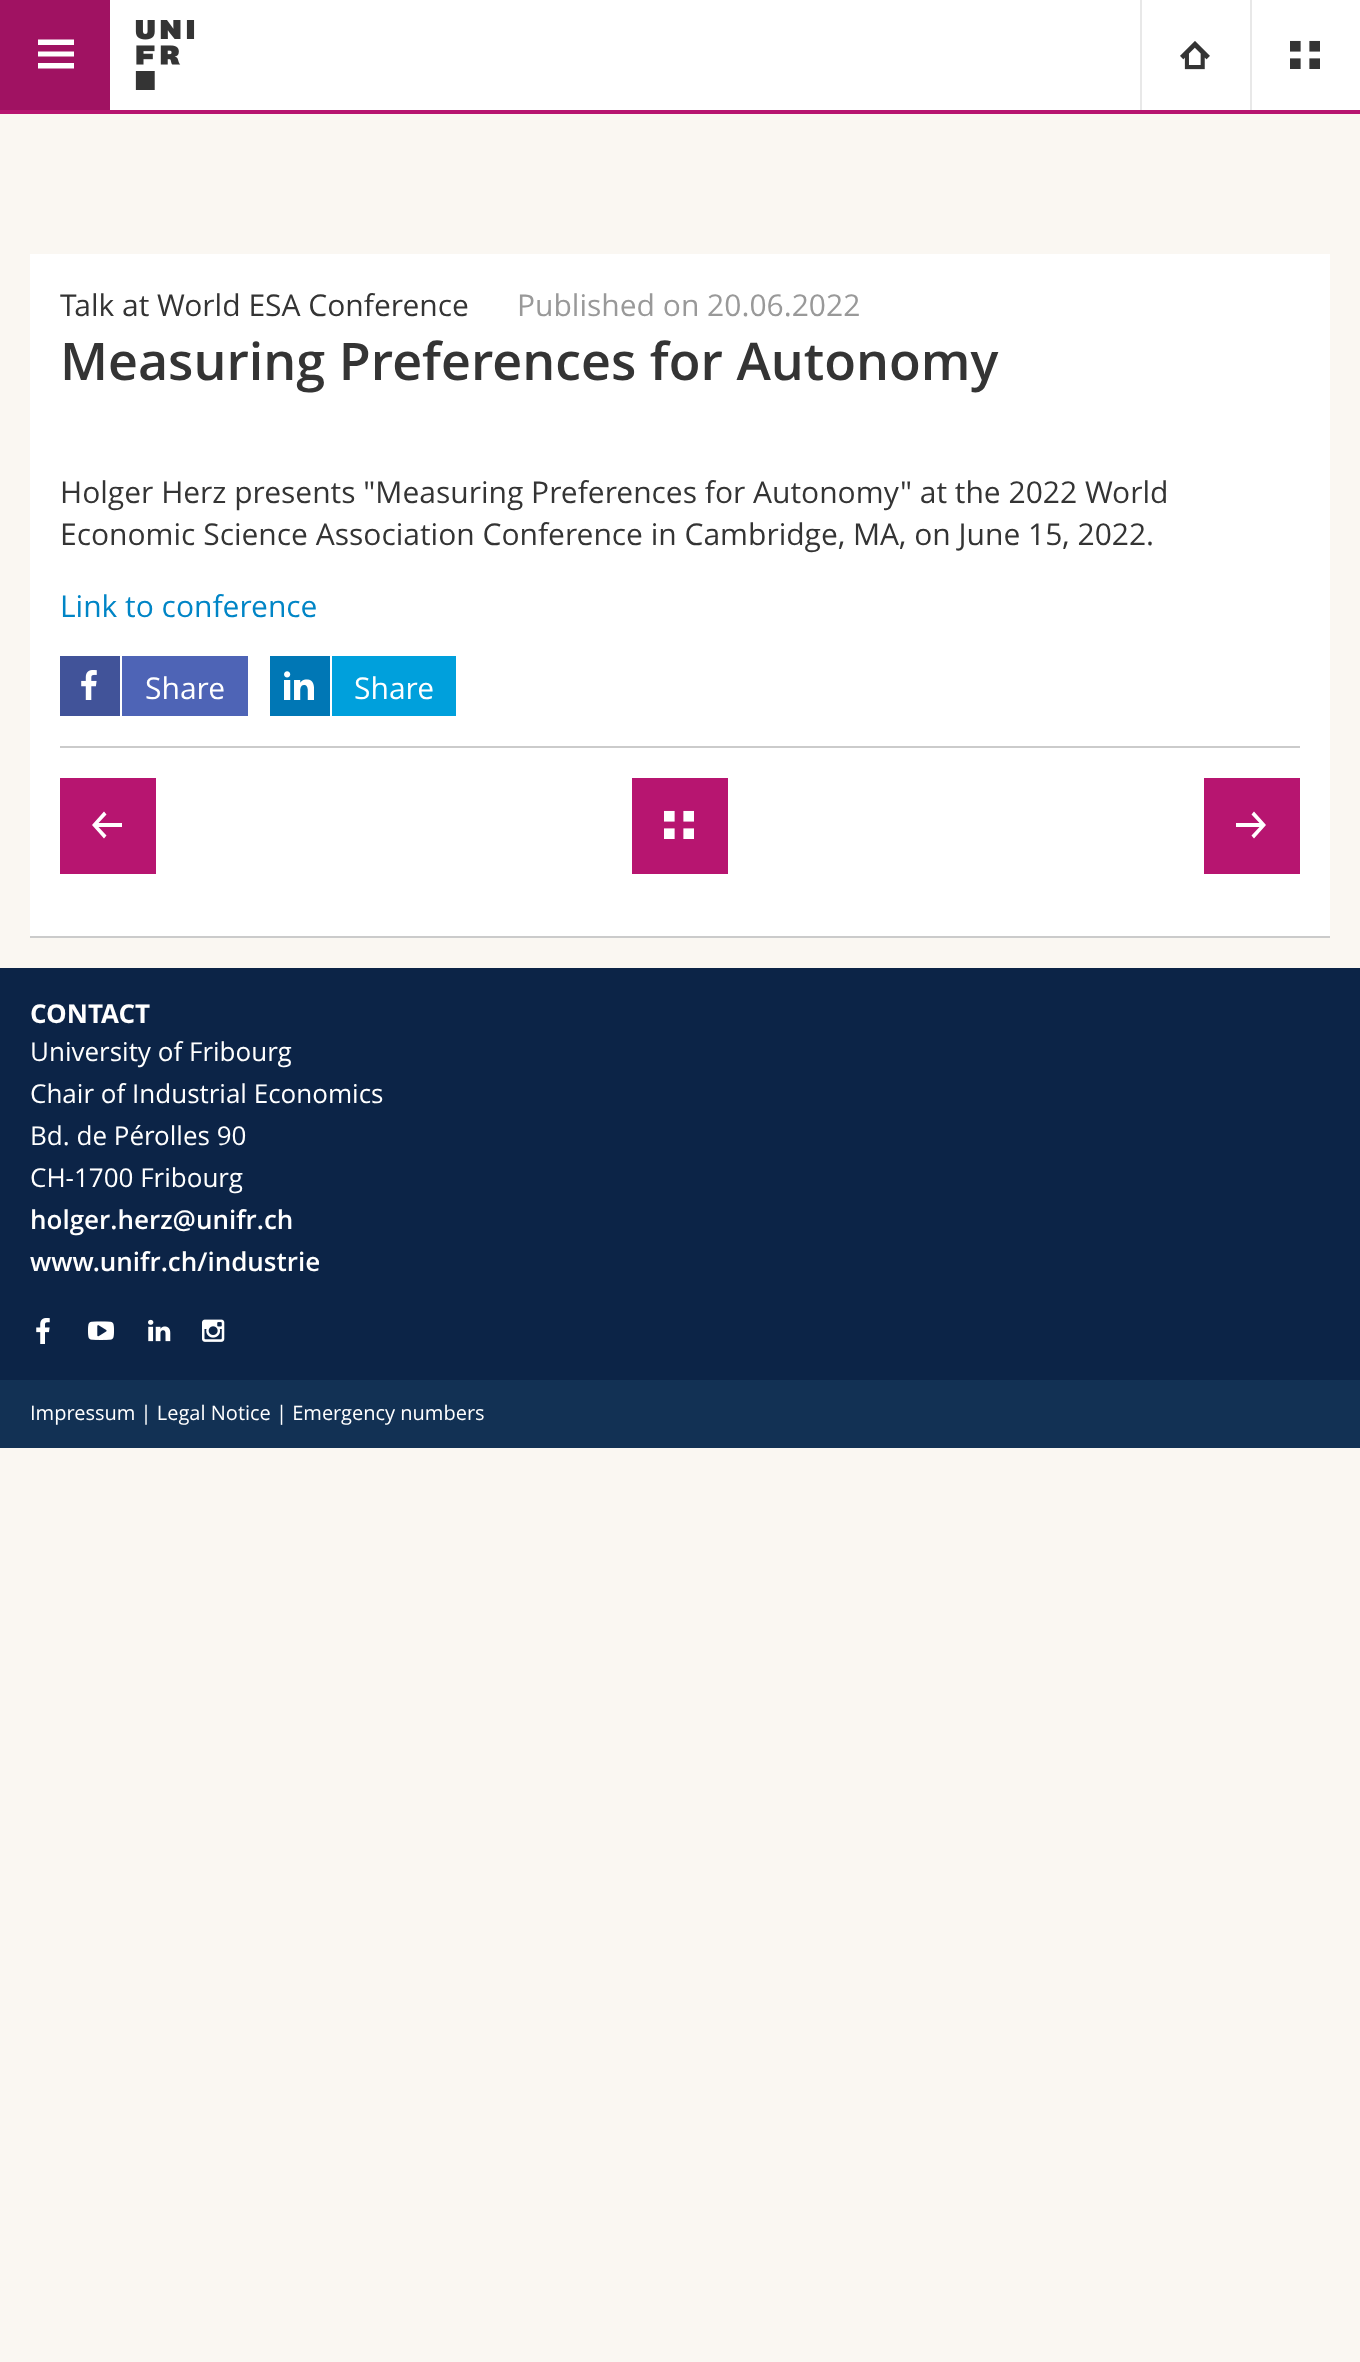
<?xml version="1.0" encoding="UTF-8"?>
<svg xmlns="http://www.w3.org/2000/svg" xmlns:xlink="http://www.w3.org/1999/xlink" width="1360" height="2362">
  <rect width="100%" height="100%" fill="#faf7f2" />
  <rect x="110" width="1250" height="110" fill="#ffffff" />
  <rect width="110" height="110" fill="#a01262" />
  <path d="M 74 63 h -36 v 5.5 h 36 z m 0 -11.5 h -36 v 5 h 36 z m 0 -12 h -36 v 5.5 h 36 z" fill="#ffffff" />
  <image x="135" y="20" width="60" height="70" xlink:href="image1.png" />
  <rect x="1140" width="2" height="110" fill="#e8e8e8" />
  <image x="1180" y="41" width="30" height="29" xlink:href="image2.png" />
  <rect x="1250" width="2" height="110" fill="#e8e8e8" />
  <image x="1290" y="40" width="30" height="29" xlink:href="image3.png" />
  <rect y="110" width="1360" height="4" fill="#b71570" />
  <rect x="30" y="254" width="1300" height="682" fill="#ffffff" />
  <rect x="30" y="936" width="1300" height="2" fill="#cbcbcb" />
  <rect x="60" y="656" width="60" height="60" fill="#415399" />
  <image x="81" y="670" width="16" height="30" xlink:href="image4.png" />
  <rect x="122" y="656" width="126" height="60" fill="#4e64b6" />
  <rect x="270" y="656" width="60" height="60" fill="#0077b5" />
  <image x="284" y="671" width="30" height="29" xlink:href="image5.png" />
  <rect x="332" y="656" width="124" height="60" fill="#00a0dc" />
  <rect x="60" y="746" width="1240" height="2" fill="#cbcbcb" />
  <rect x="60" y="778" width="96" height="96" fill="#b71570" />
  <path d="M 104 811.5 l 2.5 3 l -8 8.5 h 23.5 v 4 h -23.5 l 8 8.5 l -2.5 3 l -12 -13.5 z" fill="#ffffff" />
  <rect x="632" y="778" width="96" height="96" fill="#b71570" />
  <image x="664" y="810" width="30" height="29" xlink:href="image6.png" />
  <rect x="1204" y="778" width="96" height="96" fill="#b71570" />
  <path d="M 1254 838.5 l -2.5 -3 l 8 -8.5 h -23.5 v -4 h 23.5 l -8 -8.5 l 2.5 -3 l 12 13.5 z" fill="#ffffff" />
  <rect y="968" width="1360" height="412" fill="#0c2447" />
  <image x="36" y="1318" width="14" height="26" xlink:href="image7.png" />
  <image x="88" y="1321" width="26" height="19" xlink:href="image8.png" />
  <image x="148" y="1319" width="23" height="23" xlink:href="image9.png" />
  <image x="202" y="1319" width="23" height="23" xlink:href="image10.png" />
  <rect y="1380" width="1360" height="68" fill="#123154" />
  <text x="60" y="316" style="font-family: Open Sans; font-size: 30px; fill: #343434">Talk at World ESA Conference</text>
  <text x="517" y="316" style="font-family: Open Sans; font-size: 30px; fill: #999999">Published on 20.06.2022</text>
  <text x="60" y="380" style="font-family: Open Sans; font-size: 52px; font-weight: 600; fill: #343434">Measuring Preferences for Autonomy</text>
  <text x="60" y="503" style="font-family: Open Sans; font-size: 30px; fill: #343434">Holger Herz presents "Measuring Preferences for Autonomy" at the 2022 World</text>
  <text x="60" y="545" style="font-family: Open Sans; font-size: 30px; fill: #343434">Economic Science Association Conference in Cambridge, MA, on June 15, 2022.</text>
  <text x="60" y="617" style="font-family: Open Sans; font-size: 30px; fill: #0085c6">Link to conference</text>
  <text x="145" y="699" style="font-family: Open Sans; font-size: 30px; fill: #ffffff">Share</text>
  <text x="354" y="699" style="font-family: Open Sans; font-size: 30px; fill: #ffffff">Share</text>
  <text x="30" y="1023" style="font-family: Open Sans; font-size: 26px; font-weight: bold; fill: #ffffff">CONTACT</text>
  <text x="30" y="1061" style="font-family: Open Sans; font-size: 26px; fill: #ffffff">University of Fribourg</text>
  <text x="30" y="1103" style="font-family: Open Sans; font-size: 26px; fill: #ffffff">Chair of Industrial Economics</text>
  <text x="30" y="1145" style="font-family: Open Sans; font-size: 26px; fill: #ffffff">Bd. de Pérolles 90</text>
  <text x="30" y="1187" style="font-family: Open Sans; font-size: 26px; fill: #ffffff">CH-1700 Fribourg</text>
  <text x="30" y="1229" style="font-family: Open Sans; font-size: 26px; font-weight: 600; fill: #ffffff">holger.herz@unifr.ch</text>
  <text x="30" y="1271" style="font-family: Open Sans; font-size: 26px; font-weight: 600; fill: #ffffff">www.unifr.ch/industrie</text>
  <text x="30" y="1420" style="font-family: Open Sans; font-size: 20px; fill: #ffffff">Impressum | Legal Notice | Emergency numbers</text>
</svg>
